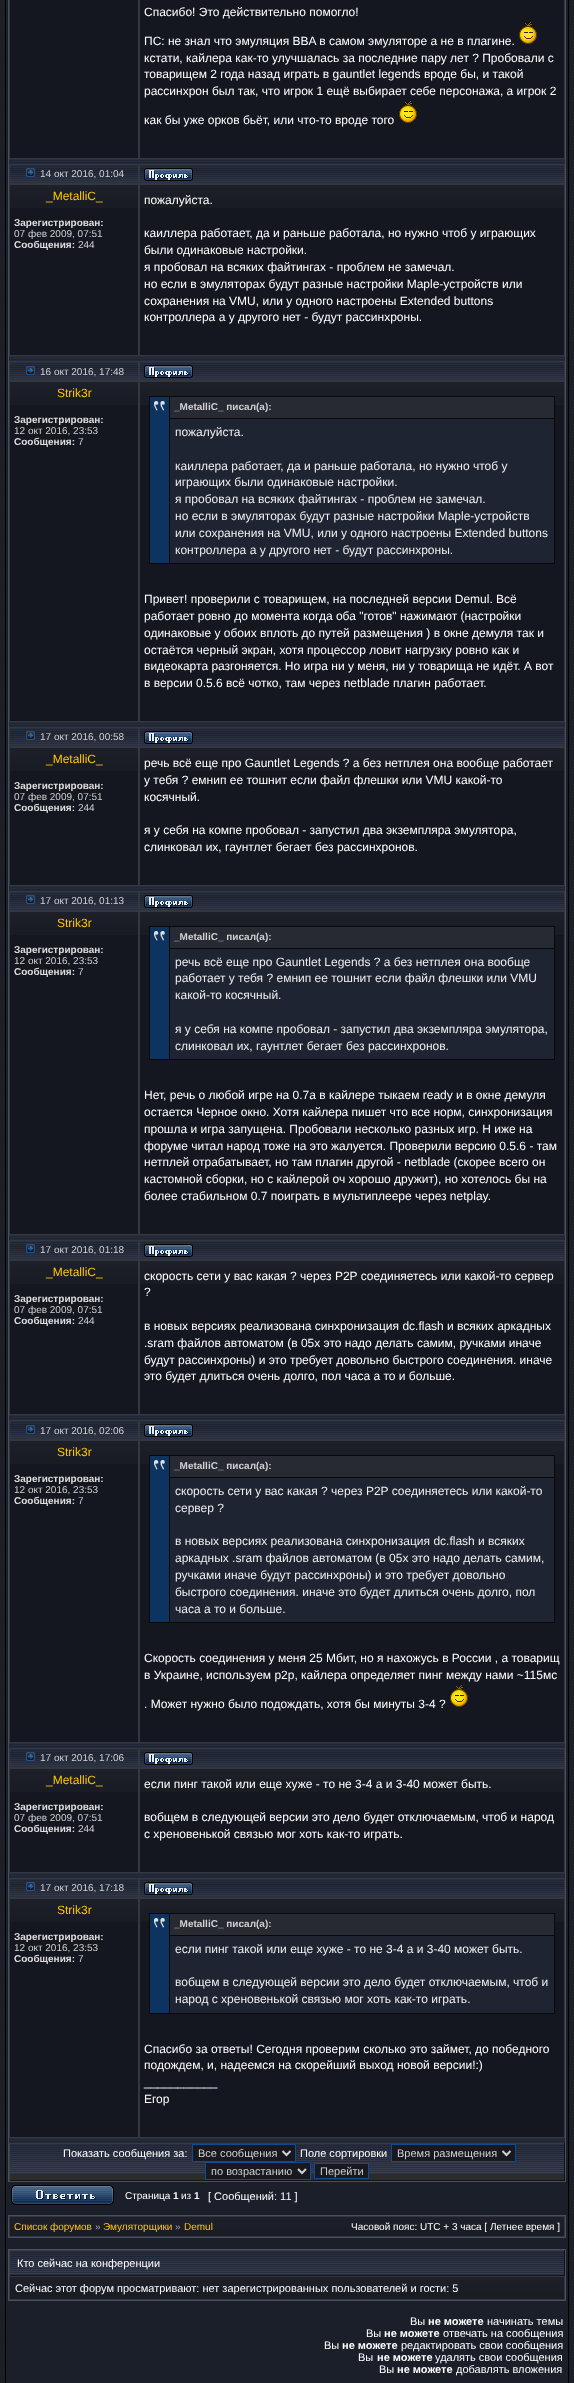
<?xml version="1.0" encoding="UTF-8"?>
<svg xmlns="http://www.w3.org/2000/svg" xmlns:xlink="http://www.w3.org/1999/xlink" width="574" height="2383">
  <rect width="100%" height="100%" fill="#ffffff" />
  <image x="0" y="0" width="574" height="2383" xlink:href="image1.png" />
  <rect x="568" width="1" height="2383" fill="#000000" />
  <rect x="5" width="1" height="2383" fill="#000000" />
  <rect x="6" width="562" height="2383" fill="#1a1f29" />
  <rect x="8.5" y="-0.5" width="557" height="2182" fill="none" stroke="#494f5f" />
  <rect x="9.5" y="-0.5" width="129" height="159" fill="#14171f" stroke="#33373f" />
  <rect x="139.5" y="-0.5" width="425" height="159" fill="#14171f" stroke="#33373f" />
  <image x="519" y="22" width="18" height="22" xlink:href="image2.png" />
  <image x="399" y="101" width="18" height="22" xlink:href="image2.png" />
  <image x="9" y="159" width="556" height="5" xlink:href="image3.png" />
  <image x="10" y="165" width="128" height="18" xlink:href="image4.png" />
  <rect x="9.5" y="164.5" width="129" height="19" fill="none" stroke="#33373f" />
  <image x="26" y="168" width="9" height="9" xlink:href="image5.png" />
  <image x="140" y="165" width="424" height="18" xlink:href="image6.png" />
  <rect x="139.5" y="164.5" width="425" height="19" fill="none" stroke="#33373f" />
  <image x="144" y="168" width="49" height="13" xlink:href="image7.png" />
  <rect x="10" y="208" width="128" height="147" fill="#14171f" />
  <image x="10" y="185" width="128" height="23" xlink:href="image8.png" />
  <rect x="9.5" y="184.5" width="129" height="171" fill="none" stroke="#33373f" />
  <rect x="140" y="208" width="424" height="147" fill="#14171f" />
  <image x="140" y="185" width="424" height="23" xlink:href="image9.png" />
  <rect x="139.5" y="184.5" width="425" height="171" fill="none" stroke="#33373f" />
  <image x="9" y="356" width="556" height="5" xlink:href="image3.png" />
  <image x="10" y="362" width="128" height="18" xlink:href="image4.png" />
  <rect x="9.5" y="361.5" width="129" height="19" fill="none" stroke="#33373f" />
  <image x="26" y="366" width="9" height="9" xlink:href="image5.png" />
  <image x="140" y="362" width="424" height="18" xlink:href="image6.png" />
  <rect x="139.5" y="361.5" width="425" height="19" fill="none" stroke="#33373f" />
  <image x="144" y="365" width="49" height="13" xlink:href="image7.png" />
  <rect x="10" y="405" width="128" height="316" fill="#14171f" />
  <image x="10" y="382" width="128" height="23" xlink:href="image8.png" />
  <rect x="9.5" y="381.5" width="129" height="340" fill="none" stroke="#33373f" />
  <rect x="140" y="405" width="424" height="316" fill="#14171f" />
  <image x="140" y="382" width="424" height="23" xlink:href="image9.png" />
  <rect x="139.5" y="381.5" width="425" height="340" fill="none" stroke="#33373f" />
  <rect x="150" y="397" width="19" height="166" fill="#0d3461" />
  <image x="154" y="401" width="11" height="10" xlink:href="image10.png" />
  <rect x="149.5" y="396.5" width="405" height="167" fill="none" stroke="#090909" />
  <rect x="170" y="397" width="384" height="21" fill="#272a32" />
  <rect x="169" y="418" width="385" height="1" fill="#090909" />
  <rect x="169" y="397" width="1" height="166" fill="#090909" />
  <rect x="170" y="419" width="384" height="144" fill="#1e2432" />
  <image x="9" y="722" width="556" height="5" xlink:href="image3.png" />
  <image x="10" y="728" width="128" height="18" xlink:href="image4.png" />
  <rect x="9.5" y="727.5" width="129" height="19" fill="none" stroke="#33373f" />
  <image x="26" y="731" width="9" height="9" xlink:href="image5.png" />
  <image x="140" y="728" width="424" height="18" xlink:href="image6.png" />
  <rect x="139.5" y="727.5" width="425" height="19" fill="none" stroke="#33373f" />
  <image x="144" y="731" width="49" height="13" xlink:href="image7.png" />
  <rect x="10" y="771" width="128" height="114" fill="#14171f" />
  <image x="10" y="748" width="128" height="23" xlink:href="image8.png" />
  <rect x="9.5" y="747.5" width="129" height="138" fill="none" stroke="#33373f" />
  <rect x="140" y="771" width="424" height="114" fill="#14171f" />
  <image x="140" y="748" width="424" height="23" xlink:href="image9.png" />
  <rect x="139.5" y="747.5" width="425" height="138" fill="none" stroke="#33373f" />
  <image x="9" y="886" width="556" height="5" xlink:href="image3.png" />
  <image x="10" y="892" width="128" height="18" xlink:href="image4.png" />
  <rect x="9.5" y="891.5" width="129" height="19" fill="none" stroke="#33373f" />
  <image x="26" y="895" width="9" height="9" xlink:href="image5.png" />
  <image x="140" y="892" width="424" height="18" xlink:href="image6.png" />
  <rect x="139.5" y="891.5" width="425" height="19" fill="none" stroke="#33373f" />
  <image x="144" y="895" width="49" height="13" xlink:href="image7.png" />
  <rect x="10" y="935" width="128" height="299" fill="#14171f" />
  <image x="10" y="912" width="128" height="23" xlink:href="image8.png" />
  <rect x="9.5" y="911.5" width="129" height="323" fill="none" stroke="#33373f" />
  <rect x="140" y="935" width="424" height="299" fill="#14171f" />
  <image x="140" y="912" width="424" height="23" xlink:href="image9.png" />
  <rect x="139.5" y="911.5" width="425" height="323" fill="none" stroke="#33373f" />
  <rect x="150" y="927" width="19" height="132" fill="#0d3461" />
  <image x="154" y="931" width="11" height="10" xlink:href="image10.png" />
  <rect x="149.5" y="926.5" width="405" height="133" fill="none" stroke="#090909" />
  <rect x="170" y="927" width="384" height="21" fill="#272a32" />
  <rect x="169" y="948" width="385" height="1" fill="#090909" />
  <rect x="169" y="927" width="1" height="132" fill="#090909" />
  <rect x="170" y="949" width="384" height="110" fill="#1e2432" />
  <image x="9" y="1235" width="556" height="5" xlink:href="image3.png" />
  <image x="10" y="1241" width="128" height="18" xlink:href="image4.png" />
  <rect x="9.5" y="1240.5" width="129" height="19" fill="none" stroke="#33373f" />
  <image x="26" y="1244" width="9" height="9" xlink:href="image5.png" />
  <image x="140" y="1241" width="424" height="18" xlink:href="image6.png" />
  <rect x="139.5" y="1240.5" width="425" height="19" fill="none" stroke="#33373f" />
  <image x="144" y="1244" width="49" height="13" xlink:href="image7.png" />
  <rect x="10" y="1284" width="128" height="130" fill="#14171f" />
  <image x="10" y="1261" width="128" height="23" xlink:href="image8.png" />
  <rect x="9.5" y="1260.5" width="129" height="154" fill="none" stroke="#33373f" />
  <rect x="140" y="1284" width="424" height="130" fill="#14171f" />
  <image x="140" y="1261" width="424" height="23" xlink:href="image9.png" />
  <rect x="139.5" y="1260.5" width="425" height="154" fill="none" stroke="#33373f" />
  <image x="9" y="1415" width="556" height="5" xlink:href="image3.png" />
  <image x="10" y="1421" width="128" height="18" xlink:href="image4.png" />
  <rect x="9.5" y="1420.5" width="129" height="19" fill="none" stroke="#33373f" />
  <image x="26" y="1425" width="9" height="9" xlink:href="image5.png" />
  <image x="140" y="1421" width="424" height="18" xlink:href="image6.png" />
  <rect x="139.5" y="1420.5" width="425" height="19" fill="none" stroke="#33373f" />
  <image x="144" y="1424" width="49" height="13" xlink:href="image7.png" />
  <rect x="10" y="1464" width="128" height="278" fill="#14171f" />
  <image x="10" y="1441" width="128" height="23" xlink:href="image8.png" />
  <rect x="9.5" y="1440.5" width="129" height="302" fill="none" stroke="#33373f" />
  <rect x="140" y="1464" width="424" height="278" fill="#14171f" />
  <image x="140" y="1441" width="424" height="23" xlink:href="image9.png" />
  <rect x="139.5" y="1440.5" width="425" height="302" fill="none" stroke="#33373f" />
  <rect x="150" y="1456" width="19" height="166" fill="#0d3461" />
  <image x="154" y="1460" width="11" height="10" xlink:href="image10.png" />
  <rect x="149.5" y="1455.5" width="405" height="167" fill="none" stroke="#090909" />
  <rect x="170" y="1456" width="384" height="21" fill="#272a32" />
  <rect x="169" y="1477" width="385" height="1" fill="#090909" />
  <rect x="169" y="1456" width="1" height="166" fill="#090909" />
  <rect x="170" y="1478" width="384" height="144" fill="#1e2432" />
  <image x="450" y="1685" width="18" height="22" xlink:href="image2.png" />
  <image x="9" y="1743" width="556" height="5" xlink:href="image3.png" />
  <image x="10" y="1749" width="128" height="18" xlink:href="image4.png" />
  <rect x="9.5" y="1748.5" width="129" height="19" fill="none" stroke="#33373f" />
  <image x="26" y="1752" width="9" height="9" xlink:href="image5.png" />
  <image x="140" y="1749" width="424" height="18" xlink:href="image6.png" />
  <rect x="139.5" y="1748.5" width="425" height="19" fill="none" stroke="#33373f" />
  <image x="144" y="1752" width="49" height="13" xlink:href="image7.png" />
  <rect x="10" y="1792" width="128" height="80" fill="#14171f" />
  <image x="10" y="1769" width="128" height="23" xlink:href="image8.png" />
  <rect x="9.5" y="1768.5" width="129" height="104" fill="none" stroke="#33373f" />
  <rect x="140" y="1792" width="424" height="80" fill="#14171f" />
  <image x="140" y="1769" width="424" height="23" xlink:href="image9.png" />
  <rect x="139.5" y="1768.5" width="425" height="104" fill="none" stroke="#33373f" />
  <image x="9" y="1873" width="556" height="5" xlink:href="image3.png" />
  <image x="10" y="1879" width="128" height="18" xlink:href="image4.png" />
  <rect x="9.5" y="1878.5" width="129" height="19" fill="none" stroke="#33373f" />
  <image x="26" y="1882" width="9" height="9" xlink:href="image5.png" />
  <image x="140" y="1879" width="424" height="18" xlink:href="image6.png" />
  <rect x="139.5" y="1878.5" width="425" height="19" fill="none" stroke="#33373f" />
  <image x="144" y="1882" width="49" height="13" xlink:href="image7.png" />
  <rect x="10" y="1922" width="128" height="215" fill="#14171f" />
  <image x="10" y="1899" width="128" height="23" xlink:href="image8.png" />
  <rect x="9.5" y="1898.5" width="129" height="239" fill="none" stroke="#33373f" />
  <rect x="140" y="1922" width="424" height="215" fill="#14171f" />
  <image x="140" y="1899" width="424" height="23" xlink:href="image9.png" />
  <rect x="139.5" y="1898.5" width="425" height="239" fill="none" stroke="#33373f" />
  <rect x="150" y="1914" width="19" height="99" fill="#0d3461" />
  <image x="154" y="1918" width="11" height="10" xlink:href="image10.png" />
  <rect x="149.5" y="1913.5" width="405" height="100" fill="none" stroke="#090909" />
  <rect x="170" y="1914" width="384" height="21" fill="#272a32" />
  <rect x="169" y="1935" width="385" height="1" fill="#090909" />
  <rect x="169" y="1914" width="1" height="99" fill="#090909" />
  <rect x="170" y="1936" width="384" height="77" fill="#1e2432" />
  <image x="9" y="2138" width="556" height="5" xlink:href="image3.png" />
  <rect x="10" y="2174" width="554" height="6" fill="#2c2c2c" />
  <image x="10" y="2144" width="554" height="30" xlink:href="image11.png" />
  <rect x="9" y="2143" width="556" height="1" fill="#3c3c3c" />
  <rect x="564" y="2143" width="1" height="38" fill="#121212" />
  <rect x="9" y="2180" width="556" height="1" fill="#131313" />
  <rect x="9" y="2143" width="1" height="38" fill="#404040" />
  <rect x="192.5" y="2144.5" width="103" height="17" fill="#171820" stroke="#0f4b90" />
  <path d="M 282.5 2151 l 4 4 l 4 -4" fill="none" stroke="#d0d0d0" stroke-width="2" />
  <rect x="391.5" y="2144.5" width="124" height="17" fill="#171820" stroke="#0f4b90" />
  <path d="M 502.5 2151 l 4 4 l 4 -4" fill="none" stroke="#d0d0d0" stroke-width="2" />
  <rect x="205.5" y="2162.5" width="105" height="17" fill="#171820" stroke="#0f4b90" />
  <path d="M 298 2169 l 4 4 l 4 -4" fill="none" stroke="#d0d0d0" stroke-width="2" />
  <rect x="314.5" y="2163.5" width="54" height="15" fill="#171820" stroke="#0f4b90" />
  <image x="11" y="2185" width="103" height="20" xlink:href="image12.png" />
  <rect x="8.5" y="2215.5" width="557" height="22" fill="none" stroke="#494f5f" />
  <image x="10" y="2217" width="554" height="19" xlink:href="image13.png" />
  <rect x="9.5" y="2216.5" width="555" height="20" fill="none" stroke="#33373f" />
  <rect x="8.5" y="2249.5" width="557" height="51" fill="none" stroke="#494f5f" />
  <image x="10" y="2251" width="554" height="24" xlink:href="image14.png" />
  <rect x="9" y="2250" width="556" height="1" fill="#3c3c3c" />
  <rect x="564" y="2250" width="1" height="26" fill="#121212" />
  <rect x="9" y="2275" width="556" height="1" fill="#131313" />
  <rect x="9" y="2250" width="1" height="26" fill="#404040" />
  <image x="10" y="2277" width="554" height="22" xlink:href="image15.png" />
  <rect x="9.5" y="2276.5" width="555" height="23" fill="none" stroke="#33373f" />
  <text x="144" y="16" style="font-family: Liberation Sans; font-size: 12px; fill: #ffffff">Спасибо! Это действительно помогло!</text>
  <text x="144" y="45" style="font-family: Liberation Sans; font-size: 12px; fill: #ffffff">ПС: не знал что эмуляция BBA в самом эмуляторе а не в плагине.</text>
  <text x="144" y="62" style="font-family: Liberation Sans; font-size: 12px; fill: #ffffff">кстати, кайлера как-то улучшалась за последние пару лет ? Пробовали с</text>
  <text x="144" y="78" style="font-family: Liberation Sans; font-size: 12px; fill: #ffffff">товарищем 2 года назад играть в gauntlet legends вроде бы, и такой</text>
  <text x="144" y="95" style="font-family: Liberation Sans; font-size: 12px; fill: #ffffff">рассинхрон был так, что игрок 1 ещё выбирает себе персонажа, а игрок 2</text>
  <text x="144" y="124" style="font-family: Liberation Sans; font-size: 12px; fill: #ffffff">как бы уже орков бьёт, или что-то вроде того</text>
  <text x="40" y="177" style="font-family: Liberation Sans; font-size: 10px; fill: #d0d0d0">14 окт 2016, 01:04</text>
  <text x="46" y="200" style="font-family: Liberation Sans; font-size: 12px; fill: #ffc600">_MetalliC_</text>
  <text x="14" y="226" style="font-family: Liberation Sans; font-size: 10px; font-weight: bold; fill: #dddddd">Зарегистрирован:</text>
  <text x="14" y="237" style="font-family: Liberation Sans; font-size: 10px; fill: #d0d0d0">07 фев 2009, 07:51</text>
  <text x="14" y="248" style="font-family: Liberation Sans; font-size: 10px; font-weight: bold; fill: #dddddd">Сообщения:</text>
  <text x="78" y="248" style="font-family: Liberation Sans; font-size: 10px; fill: #d0d0d0">244</text>
  <text x="144" y="204" style="font-family: Liberation Sans; font-size: 12px; fill: #ffffff">пожалуйста.</text>
  <text x="144" y="237" style="font-family: Liberation Sans; font-size: 12px; fill: #ffffff">каиллера работает, да и раньше работала, но нужно чтоб у играющих</text>
  <text x="144" y="254" style="font-family: Liberation Sans; font-size: 12px; fill: #ffffff">были одинаковые настройки.</text>
  <text x="144" y="271" style="font-family: Liberation Sans; font-size: 12px; fill: #ffffff">я пробовал на всяких файтингах - проблем не замечал.</text>
  <text x="144" y="288" style="font-family: Liberation Sans; font-size: 12px; fill: #ffffff">но если в эмуляторах будут разные настройки Maple-устройств или</text>
  <text x="144" y="305" style="font-family: Liberation Sans; font-size: 12px; fill: #ffffff">сохранения на VMU, или у одного настроены Extended buttons</text>
  <text x="144" y="321" style="font-family: Liberation Sans; font-size: 12px; fill: #ffffff">контроллера а у другого нет - будут рассинхроны.</text>
  <text x="40" y="375" style="font-family: Liberation Sans; font-size: 10px; fill: #d0d0d0">16 окт 2016, 17:48</text>
  <text x="57" y="397" style="font-family: Liberation Sans; font-size: 12px; fill: #ffc600">Strik3r</text>
  <text x="14" y="423" style="font-family: Liberation Sans; font-size: 10px; font-weight: bold; fill: #dddddd">Зарегистрирован:</text>
  <text x="14" y="434" style="font-family: Liberation Sans; font-size: 10px; fill: #d0d0d0">12 окт 2016, 23:53</text>
  <text x="14" y="445" style="font-family: Liberation Sans; font-size: 10px; font-weight: bold; fill: #dddddd">Сообщения:</text>
  <text x="78" y="445" style="font-family: Liberation Sans; font-size: 10px; fill: #d0d0d0">7</text>
  <text x="174" y="410" style="font-family: Liberation Sans; font-size: 10px; font-weight: bold; fill: #d0d0d0">_MetalliC_ писал(а):</text>
  <text x="175" y="436" style="font-family: Liberation Sans; font-size: 12px; fill: #eeeeee">пожалуйста.</text>
  <text x="175" y="470" style="font-family: Liberation Sans; font-size: 12px; fill: #eeeeee">каиллера работает, да и раньше работала, но нужно чтоб у</text>
  <text x="175" y="486" style="font-family: Liberation Sans; font-size: 12px; fill: #eeeeee">играющих были одинаковые настройки.</text>
  <text x="175" y="503" style="font-family: Liberation Sans; font-size: 12px; fill: #eeeeee">я пробовал на всяких файтингах - проблем не замечал.</text>
  <text x="175" y="520" style="font-family: Liberation Sans; font-size: 12px; fill: #eeeeee">но если в эмуляторах будут разные настройки Maple-устройств</text>
  <text x="175" y="537" style="font-family: Liberation Sans; font-size: 12px; fill: #eeeeee">или сохранения на VMU, или у одного настроены Extended buttons</text>
  <text x="175" y="554" style="font-family: Liberation Sans; font-size: 12px; fill: #eeeeee">контроллера а у другого нет - будут рассинхроны.</text>
  <text x="144" y="603" style="font-family: Liberation Sans; font-size: 12px; fill: #ffffff">Привет! проверили с товарищем, на последней версии Demul. Всё</text>
  <text x="144" y="620" style="font-family: Liberation Sans; font-size: 12px; fill: #ffffff">работает ровно до момента когда оба "готов" нажимают (настройки</text>
  <text x="144" y="637" style="font-family: Liberation Sans; font-size: 12px; fill: #ffffff">одинаковые у обоих вплоть до путей размещения ) в окне демуля так и</text>
  <text x="144" y="654" style="font-family: Liberation Sans; font-size: 12px; fill: #ffffff">остаётся черный экран, хотя процессор ловит нагрузку ровно как и</text>
  <text x="144" y="670" style="font-family: Liberation Sans; font-size: 12px; fill: #ffffff">видеокарта разгоняется. Но игра ни у меня, ни у товарища не идёт. А вот</text>
  <text x="144" y="687" style="font-family: Liberation Sans; font-size: 12px; fill: #ffffff">в версии 0.5.6 всё чотко, там через netblade плагин работает.</text>
  <text x="40" y="740" style="font-family: Liberation Sans; font-size: 10px; fill: #d0d0d0">17 окт 2016, 00:58</text>
  <text x="46" y="763" style="font-family: Liberation Sans; font-size: 12px; fill: #ffc600">_MetalliC_</text>
  <text x="14" y="789" style="font-family: Liberation Sans; font-size: 10px; font-weight: bold; fill: #dddddd">Зарегистрирован:</text>
  <text x="14" y="800" style="font-family: Liberation Sans; font-size: 10px; fill: #d0d0d0">07 фев 2009, 07:51</text>
  <text x="14" y="811" style="font-family: Liberation Sans; font-size: 10px; font-weight: bold; fill: #dddddd">Сообщения:</text>
  <text x="78" y="811" style="font-family: Liberation Sans; font-size: 10px; fill: #d0d0d0">244</text>
  <text x="144" y="767" style="font-family: Liberation Sans; font-size: 12px; fill: #ffffff">речь всё еще про Gauntlet Legends ? а без нетплея она вообще работает</text>
  <text x="144" y="784" style="font-family: Liberation Sans; font-size: 12px; fill: #ffffff">у тебя ? емнип ее тошнит если файл флешки или VMU какой-то</text>
  <text x="144" y="801" style="font-family: Liberation Sans; font-size: 12px; fill: #ffffff">косячный.</text>
  <text x="144" y="834" style="font-family: Liberation Sans; font-size: 12px; fill: #ffffff">я у себя на компе пробовал - запустил два экземпляра эмулятора,</text>
  <text x="144" y="851" style="font-family: Liberation Sans; font-size: 12px; fill: #ffffff">слинковал их, гаунтлет бегает без рассинхронов.</text>
  <text x="40" y="904" style="font-family: Liberation Sans; font-size: 10px; fill: #d0d0d0">17 окт 2016, 01:13</text>
  <text x="57" y="927" style="font-family: Liberation Sans; font-size: 12px; fill: #ffc600">Strik3r</text>
  <text x="14" y="953" style="font-family: Liberation Sans; font-size: 10px; font-weight: bold; fill: #dddddd">Зарегистрирован:</text>
  <text x="14" y="964" style="font-family: Liberation Sans; font-size: 10px; fill: #d0d0d0">12 окт 2016, 23:53</text>
  <text x="14" y="975" style="font-family: Liberation Sans; font-size: 10px; font-weight: bold; fill: #dddddd">Сообщения:</text>
  <text x="78" y="975" style="font-family: Liberation Sans; font-size: 10px; fill: #d0d0d0">7</text>
  <text x="174" y="940" style="font-family: Liberation Sans; font-size: 10px; font-weight: bold; fill: #d0d0d0">_MetalliC_ писал(а):</text>
  <text x="175" y="966" style="font-family: Liberation Sans; font-size: 12px; fill: #eeeeee">речь всё еще про Gauntlet Legends ? а без нетплея она вообще</text>
  <text x="175" y="982" style="font-family: Liberation Sans; font-size: 12px; fill: #eeeeee">работает у тебя ? емнип ее тошнит если файл флешки или VMU</text>
  <text x="175" y="999" style="font-family: Liberation Sans; font-size: 12px; fill: #eeeeee">какой-то косячный.</text>
  <text x="175" y="1033" style="font-family: Liberation Sans; font-size: 12px; fill: #eeeeee">я у себя на компе пробовал - запустил два экземпляра эмулятора,</text>
  <text x="175" y="1050" style="font-family: Liberation Sans; font-size: 12px; fill: #eeeeee">слинковал их, гаунтлет бегает без рассинхронов.</text>
  <text x="144" y="1099" style="font-family: Liberation Sans; font-size: 12px; fill: #ffffff">Нет, речь о любой игре на 0.7a в кайлере тыкаем ready и в окне демуля</text>
  <text x="144" y="1116" style="font-family: Liberation Sans; font-size: 12px; fill: #ffffff">остается Черное окно. Хотя кайлера пишет что все норм, синхронизация</text>
  <text x="144" y="1133" style="font-family: Liberation Sans; font-size: 12px; fill: #ffffff">прошла и игра запущена. Пробовали несколько разных игр. Н иже на</text>
  <text x="144" y="1150" style="font-family: Liberation Sans; font-size: 12px; fill: #ffffff">форуме читал народ тоже на это жалуется. Проверили версию 0.5.6 - там</text>
  <text x="144" y="1166" style="font-family: Liberation Sans; font-size: 12px; fill: #ffffff">нетплей отрабатывает, но там плагин другой - netblade (скорее всего он</text>
  <text x="144" y="1183" style="font-family: Liberation Sans; font-size: 12px; fill: #ffffff">кастомной сборки, но с кайлерой оч хорошо дружит), но хотелось бы на</text>
  <text x="144" y="1200" style="font-family: Liberation Sans; font-size: 12px; fill: #ffffff">более стабильном 0.7 поиграть в мультиплеере через netplay.</text>
  <text x="40" y="1253" style="font-family: Liberation Sans; font-size: 10px; fill: #d0d0d0">17 окт 2016, 01:18</text>
  <text x="46" y="1276" style="font-family: Liberation Sans; font-size: 12px; fill: #ffc600">_MetalliC_</text>
  <text x="14" y="1302" style="font-family: Liberation Sans; font-size: 10px; font-weight: bold; fill: #dddddd">Зарегистрирован:</text>
  <text x="14" y="1313" style="font-family: Liberation Sans; font-size: 10px; fill: #d0d0d0">07 фев 2009, 07:51</text>
  <text x="14" y="1324" style="font-family: Liberation Sans; font-size: 10px; font-weight: bold; fill: #dddddd">Сообщения:</text>
  <text x="78" y="1324" style="font-family: Liberation Sans; font-size: 10px; fill: #d0d0d0">244</text>
  <text x="144" y="1280" style="font-family: Liberation Sans; font-size: 12px; fill: #ffffff">скорость сети у вас какая ? через P2P соединяетесь или какой-то сервер</text>
  <text x="144" y="1296" style="font-family: Liberation Sans; font-size: 12px; fill: #ffffff">?</text>
  <text x="144" y="1330" style="font-family: Liberation Sans; font-size: 12px; fill: #ffffff">в новых версиях реализована синхронизация dc.flash и всяких аркадных</text>
  <text x="144" y="1347" style="font-family: Liberation Sans; font-size: 12px; fill: #ffffff">.sram файлов автоматом (в 05х это надо делать самим, ручками иначе</text>
  <text x="144" y="1364" style="font-family: Liberation Sans; font-size: 12px; fill: #ffffff">будут рассинхроны) и это требует довольно быстрого соединения. иначе</text>
  <text x="144" y="1380" style="font-family: Liberation Sans; font-size: 12px; fill: #ffffff">это будет длиться очень долго, пол часа а то и больше.</text>
  <text x="40" y="1434" style="font-family: Liberation Sans; font-size: 10px; fill: #d0d0d0">17 окт 2016, 02:06</text>
  <text x="57" y="1456" style="font-family: Liberation Sans; font-size: 12px; fill: #ffc600">Strik3r</text>
  <text x="14" y="1482" style="font-family: Liberation Sans; font-size: 10px; font-weight: bold; fill: #dddddd">Зарегистрирован:</text>
  <text x="14" y="1493" style="font-family: Liberation Sans; font-size: 10px; fill: #d0d0d0">12 окт 2016, 23:53</text>
  <text x="14" y="1504" style="font-family: Liberation Sans; font-size: 10px; font-weight: bold; fill: #dddddd">Сообщения:</text>
  <text x="78" y="1504" style="font-family: Liberation Sans; font-size: 10px; fill: #d0d0d0">7</text>
  <text x="174" y="1469" style="font-family: Liberation Sans; font-size: 10px; font-weight: bold; fill: #d0d0d0">_MetalliC_ писал(а):</text>
  <text x="175" y="1495" style="font-family: Liberation Sans; font-size: 12px; fill: #eeeeee">скорость сети у вас какая ? через P2P соединяетесь или какой-то</text>
  <text x="175" y="1512" style="font-family: Liberation Sans; font-size: 12px; fill: #eeeeee">сервер ?</text>
  <text x="175" y="1545" style="font-family: Liberation Sans; font-size: 12px; fill: #eeeeee">в новых версиях реализована синхронизация dc.flash и всяких</text>
  <text x="175" y="1562" style="font-family: Liberation Sans; font-size: 12px; fill: #eeeeee">аркадных .sram файлов автоматом (в 05х это надо делать самим,</text>
  <text x="175" y="1579" style="font-family: Liberation Sans; font-size: 12px; fill: #eeeeee">ручками иначе будут рассинхроны) и это требует довольно</text>
  <text x="175" y="1596" style="font-family: Liberation Sans; font-size: 12px; fill: #eeeeee">быстрого соединения. иначе это будет длиться очень долго, пол</text>
  <text x="175" y="1613" style="font-family: Liberation Sans; font-size: 12px; fill: #eeeeee">часа а то и больше.</text>
  <text x="144" y="1662" style="font-family: Liberation Sans; font-size: 12px; fill: #ffffff">Скорость соединения у меня 25 Мбит, но я нахожусь в России , а товарищ</text>
  <text x="144" y="1679" style="font-family: Liberation Sans; font-size: 12px; fill: #ffffff">в Украине, используем p2p, кайлера определяет пинг между нами ~115мс</text>
  <text x="144" y="1708" style="font-family: Liberation Sans; font-size: 12px; fill: #ffffff">. Может нужно было подождать, хотя бы минуты 3-4 ?</text>
  <text x="40" y="1761" style="font-family: Liberation Sans; font-size: 10px; fill: #d0d0d0">17 окт 2016, 17:06</text>
  <text x="46" y="1784" style="font-family: Liberation Sans; font-size: 12px; fill: #ffc600">_MetalliC_</text>
  <text x="14" y="1810" style="font-family: Liberation Sans; font-size: 10px; font-weight: bold; fill: #dddddd">Зарегистрирован:</text>
  <text x="14" y="1821" style="font-family: Liberation Sans; font-size: 10px; fill: #d0d0d0">07 фев 2009, 07:51</text>
  <text x="14" y="1832" style="font-family: Liberation Sans; font-size: 10px; font-weight: bold; fill: #dddddd">Сообщения:</text>
  <text x="78" y="1832" style="font-family: Liberation Sans; font-size: 10px; fill: #d0d0d0">244</text>
  <text x="144" y="1788" style="font-family: Liberation Sans; font-size: 12px; fill: #ffffff">если пинг такой или еще хуже - то не 3-4 а и 3-40 может быть.</text>
  <text x="144" y="1821" style="font-family: Liberation Sans; font-size: 12px; fill: #ffffff">вобщем в следующей версии это дело будет отключаемым, чтоб и народ</text>
  <text x="144" y="1838" style="font-family: Liberation Sans; font-size: 12px; fill: #ffffff">с хреновенькой связью мог хоть как-то играть.</text>
  <text x="40" y="1891" style="font-family: Liberation Sans; font-size: 10px; fill: #d0d0d0">17 окт 2016, 17:18</text>
  <text x="57" y="1914" style="font-family: Liberation Sans; font-size: 12px; fill: #ffc600">Strik3r</text>
  <text x="14" y="1940" style="font-family: Liberation Sans; font-size: 10px; font-weight: bold; fill: #dddddd">Зарегистрирован:</text>
  <text x="14" y="1951" style="font-family: Liberation Sans; font-size: 10px; fill: #d0d0d0">12 окт 2016, 23:53</text>
  <text x="14" y="1962" style="font-family: Liberation Sans; font-size: 10px; font-weight: bold; fill: #dddddd">Сообщения:</text>
  <text x="78" y="1962" style="font-family: Liberation Sans; font-size: 10px; fill: #d0d0d0">7</text>
  <text x="174" y="1927" style="font-family: Liberation Sans; font-size: 10px; font-weight: bold; fill: #d0d0d0">_MetalliC_ писал(а):</text>
  <text x="175" y="1953" style="font-family: Liberation Sans; font-size: 12px; fill: #eeeeee">если пинг такой или еще хуже - то не 3-4 а и 3-40 может быть.</text>
  <text x="175" y="1986" style="font-family: Liberation Sans; font-size: 12px; fill: #eeeeee">вобщем в следующей версии это дело будет отключаемым, чтоб и</text>
  <text x="175" y="2003" style="font-family: Liberation Sans; font-size: 12px; fill: #eeeeee">народ с хреновенькой связью мог хоть как-то играть.</text>
  <text x="144" y="2053" style="font-family: Liberation Sans; font-size: 12px; fill: #ffffff">Спасибо за ответы! Сегодня проверим сколько это займет, до победного</text>
  <text x="144" y="2069" style="font-family: Liberation Sans; font-size: 12px; fill: #ffffff">подождем, и, надеемся на скорейший выход новой версии!:)</text>
  <text x="144" y="2086" style="font-family: Liberation Sans; font-size: 12px; fill: #ffffff">___________</text>
  <text x="144" y="2103" style="font-family: Liberation Sans; font-size: 12px; fill: #ffffff">Егор</text>
  <text x="63" y="2157" style="font-family: Liberation Sans; font-size: 11px; fill: #ffffff">Показать сообщения за:</text>
  <text x="198" y="2157" style="font-family: Liberation Sans; font-size: 11px; fill: #d0d0d0">Все сообщения</text>
  <text x="300" y="2157" style="font-family: Liberation Sans; font-size: 11px; fill: #ffffff">Поле сортировки</text>
  <text x="397" y="2157" style="font-family: Liberation Sans; font-size: 11px; fill: #d0d0d0">Время размещения</text>
  <text x="211" y="2175" style="font-family: Liberation Sans; font-size: 11px; fill: #d0d0d0">по возрастанию</text>
  <text x="320" y="2175" style="font-family: Liberation Sans; font-size: 11px; fill: #d0d0d0">Перейти</text>
  <text x="125" y="2199" style="font-family: Liberation Sans; font-size: 10px; fill: #ffffff">Страница</text>
  <text x="173" y="2199" style="font-family: Liberation Sans; font-size: 10px; font-weight: bold; fill: #ffffff">1</text>
  <text x="181" y="2199" style="font-family: Liberation Sans; font-size: 10px; fill: #ffffff">из</text>
  <text x="194" y="2199" style="font-family: Liberation Sans; font-size: 10px; font-weight: bold; fill: #ffffff">1</text>
  <text x="208" y="2200" style="font-family: Liberation Sans; font-size: 11px; fill: #ffffff">[ Сообщений: 11 ]</text>
  <text x="14" y="2230" style="font-family: Liberation Sans; font-size: 10px; fill: #ffc600">Список форумов</text>
  <text x="95" y="2230" style="font-family: Liberation Sans; font-size: 10px; fill: #aaaaaa">»</text>
  <text x="103" y="2230" style="font-family: Liberation Sans; font-size: 10px; fill: #ffc600">Эмуляторщики</text>
  <text x="175" y="2230" style="font-family: Liberation Sans; font-size: 10px; fill: #aaaaaa">»</text>
  <text x="184" y="2230" style="font-family: Liberation Sans; font-size: 10px; fill: #ffc600">Demul</text>
  <text x="351" y="2230" style="font-family: Liberation Sans; font-size: 10px; fill: #ffffff">Часовой пояс: UTC + 3 часа [ Летнее время ]</text>
  <text x="17" y="2267" style="font-family: Liberation Sans; font-size: 11px; fill: #ffffff">Кто сейчас на конференции</text>
  <text x="15" y="2292" style="font-family: Liberation Sans; font-size: 11px; fill: #ffffff">Сейчас этот форум просматривают: нет зарегистрированных пользователей и гости: 5</text>
  <text x="410" y="2325" style="font-family: Liberation Sans; font-size: 11px; fill: #ffffff">Вы</text>
  <text x="428" y="2325" style="font-family: Liberation Sans; font-size: 11px; font-weight: bold; fill: #ffffff">не можете</text>
  <text x="487" y="2325" style="font-family: Liberation Sans; font-size: 11px; fill: #ffffff">начинать темы</text>
  <text x="366" y="2337" style="font-family: Liberation Sans; font-size: 11px; fill: #ffffff">Вы</text>
  <text x="384" y="2337" style="font-family: Liberation Sans; font-size: 11px; font-weight: bold; fill: #ffffff">не можете</text>
  <text x="443" y="2337" style="font-family: Liberation Sans; font-size: 11px; fill: #ffffff">отвечать на сообщения</text>
  <text x="324" y="2349" style="font-family: Liberation Sans; font-size: 11px; fill: #ffffff">Вы</text>
  <text x="342" y="2349" style="font-family: Liberation Sans; font-size: 11px; font-weight: bold; fill: #ffffff">не можете</text>
  <text x="401" y="2349" style="font-family: Liberation Sans; font-size: 11px; fill: #ffffff">редактировать свои сообщения</text>
  <text x="358" y="2361" style="font-family: Liberation Sans; font-size: 11px; fill: #ffffff">Вы</text>
  <text x="377" y="2361" style="font-family: Liberation Sans; font-size: 11px; font-weight: bold; fill: #ffffff">не можете</text>
  <text x="435" y="2361" style="font-family: Liberation Sans; font-size: 11px; fill: #ffffff">удалять свои сообщения</text>
  <text x="379" y="2373" style="font-family: Liberation Sans; font-size: 11px; fill: #ffffff">Вы</text>
  <text x="397" y="2373" style="font-family: Liberation Sans; font-size: 11px; font-weight: bold; fill: #ffffff">не можете</text>
  <text x="456" y="2373" style="font-family: Liberation Sans; font-size: 11px; fill: #ffffff">добавлять вложения</text>
</svg>
